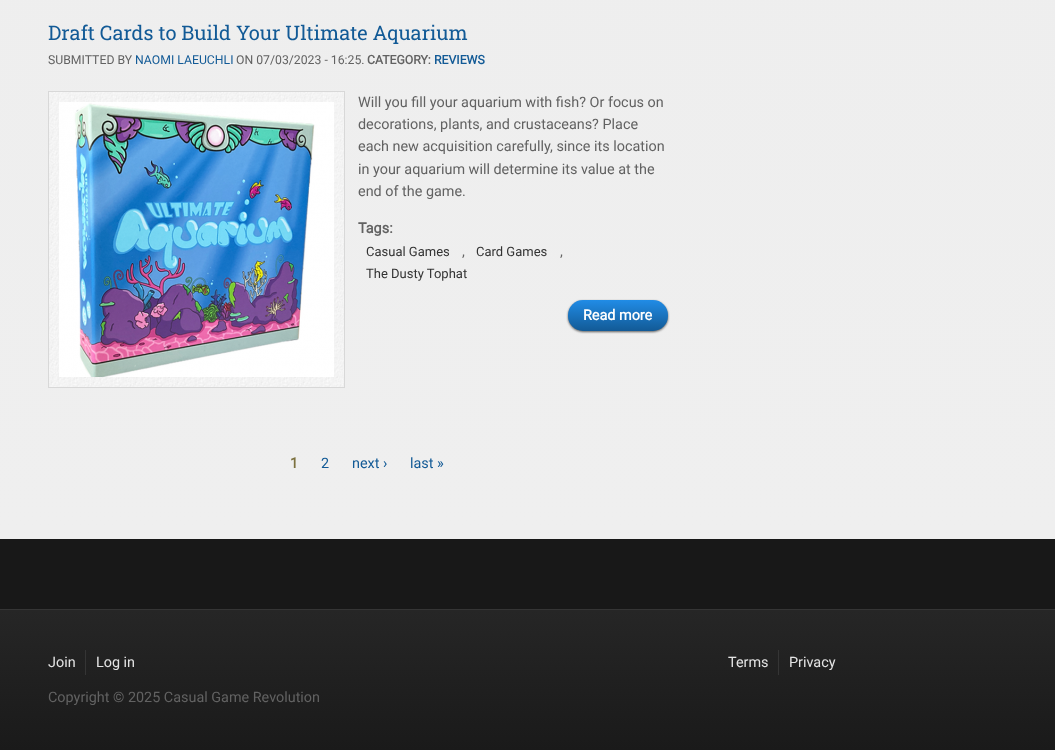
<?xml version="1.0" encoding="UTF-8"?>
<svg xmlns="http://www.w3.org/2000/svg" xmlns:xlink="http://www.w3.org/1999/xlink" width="1055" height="750">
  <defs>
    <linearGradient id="g1" gradientUnits="userSpaceOnUse" x1="527" y1="-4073" x2="528" y2="539"><stop offset="0" stop-color="#e8e8e8" /><stop offset="1" stop-color="#efefef" /></linearGradient>
    <linearGradient id="g2" gradientUnits="userSpaceOnUse" x1="618" y1="300" x2="618" y2="331"><stop offset="0" stop-color="#218ce6" /><stop offset="1" stop-color="#125a96" /></linearGradient>
    <linearGradient id="g3" gradientUnits="userSpaceOnUse" x1="528" y1="610" x2="528" y2="750"><stop offset="0" stop-color="#262626" /><stop offset="1" stop-color="#1a1a1a" /></linearGradient>
  </defs>
  <rect width="100%" height="100%" fill="#ffffff" />
  <rect width="1055" height="539" fill="url(#g1)" />
  <image x="49" y="92" width="295" height="295" xlink:href="image1.png" />
  <rect x="48.5" y="91.5" width="296" height="296" fill="none" stroke="#d8d8d8" />
  <rect x="568" y="301" width="100" height="31" rx="15" fill="#5d5d5d" filter="blur(1px)" />
  <rect x="568" y="300" width="100" height="31" rx="15" fill="url(#g2)" />
  <rect y="539" width="1055" height="70" fill="#181818" />
  <rect y="610" width="1055" height="140" fill="url(#g3)" />
  <rect y="609" width="1055" height="1" fill="#353535" />
  <rect x="85" y="650" width="1" height="25" fill="#353535" />
  <rect x="778" y="650" width="1" height="25" fill="#353535" />
  <text x="48" y="40" style="font-family: Roboto Slab; font-size: 20px; fill: #125a96">Draft Cards to Build Your Ultimate Aquarium</text>
  <text x="48" y="64" style="font-family: Roboto; font-size: 12.25px; fill: #626262">SUBMITTED BY</text>
  <text x="135" y="64" style="font-family: Roboto; font-size: 12.25px; fill: #125a96">NAOMI LAEUCHLI</text>
  <text x="236" y="64" style="font-family: Roboto; font-size: 12.25px; fill: #626262">ON 07/03/2023 - 16:25.</text>
  <text x="367" y="64" style="font-family: Roboto; font-size: 12.25px; font-weight: bold; fill: #626262">CATEGORY:</text>
  <text x="434" y="64" style="font-family: Roboto; font-size: 12.25px; font-weight: bold; fill: #125a96">REVIEWS</text>
  <text x="358" y="107" style="font-family: Roboto; font-size: 14.4px; fill: #626262">Will you fill your aquarium with fish? Or focus on</text>
  <text x="358" y="129" style="font-family: Roboto; font-size: 14.4px; fill: #626262">decorations, plants, and crustaceans? Place</text>
  <text x="358" y="151" style="font-family: Roboto; font-size: 14.4px; fill: #626262">each new acquisition carefully, since its location</text>
  <text x="358" y="174" style="font-family: Roboto; font-size: 14.4px; fill: #626262">in your aquarium will determine its value at the</text>
  <text x="358" y="196" style="font-family: Roboto; font-size: 14.4px; fill: #626262">end of the game.</text>
  <text x="358" y="233" style="font-family: Roboto; font-size: 14.4px; font-weight: bold; fill: #626262">Tags:</text>
  <text x="366" y="256" style="font-family: Roboto; font-size: 13px; fill: #333333">Casual Games</text>
  <text x="462" y="256" style="font-family: Roboto; font-size: 14.4px; fill: #626262">,</text>
  <text x="476" y="256" style="font-family: Roboto; font-size: 13px; fill: #333333">Card Games</text>
  <text x="560" y="256" style="font-family: Roboto; font-size: 14.4px; fill: #626262">,</text>
  <text x="366" y="278" style="font-family: Roboto; font-size: 13px; fill: #333333">The Dusty Tophat</text>
  <text x="583" y="320" style="font-family: Roboto; font-size: 14.4px; font-weight: bold; fill: #fefefe">Read more</text>
  <text x="290" y="468" style="font-family: Roboto; font-size: 14.4px; font-weight: bold; fill: #7c713f">1</text>
  <text x="321" y="468" style="font-family: Roboto; font-size: 14.4px; fill: #125a96">2</text>
  <text x="352" y="468" style="font-family: Roboto; font-size: 14.4px; fill: #125a96">next ›</text>
  <text x="410" y="468" style="font-family: Roboto; font-size: 14.4px; fill: #125a96">last »</text>
  <text x="48" y="667" style="font-family: Roboto; font-size: 14.4px; fill: #e4e4e4">Join</text>
  <text x="96" y="667" style="font-family: Roboto; font-size: 14.4px; fill: #e4e4e4">Log in</text>
  <text x="48" y="702" style="font-family: Roboto; font-size: 14.4px; fill: #626262">Copyright © 2025 Casual Game Revolution</text>
  <text x="728" y="667" style="font-family: Roboto; font-size: 14.4px; fill: #e4e4e4">Terms</text>
  <text x="789" y="667" style="font-family: Roboto; font-size: 14.4px; fill: #e4e4e4">Privacy</text>
</svg>
